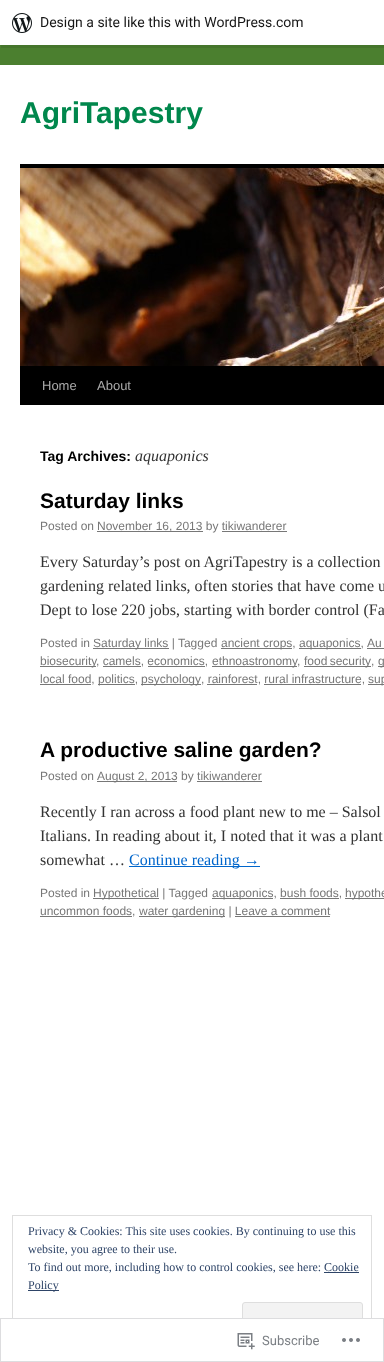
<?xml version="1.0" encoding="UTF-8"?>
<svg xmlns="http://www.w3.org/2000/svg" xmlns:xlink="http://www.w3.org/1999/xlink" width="384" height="1362">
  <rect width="100%" height="100%" fill="#4b7f2f" />
  <path d="M 1 45 v 3 h 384 v -45 h -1 v 42 z" fill="#000000" fill-opacity="0.08" />
  <rect width="384" height="45" fill="#ffffff" />
  <image x="12" y="13" width="20" height="20" xlink:href="image1.png" />
  <rect y="65" width="384" height="1297" fill="#ffffff" />
  <rect x="20" y="164" width="364" height="4" fill="#000000" />
  <rect x="20" y="366" width="364" height="39" fill="#000000" />
  <image x="20" y="168" width="364" height="198" xlink:href="image2.png" />
  <rect x="97" y="531" width="106" height="1" fill="#777777" />
  <rect x="222" y="531" width="65" height="1" fill="#777777" />
  <rect x="93" y="648" width="76" height="1" fill="#777777" />
  <rect x="221" y="648" width="71" height="1" fill="#777777" />
  <rect x="299" y="648" width="62" height="1" fill="#777777" />
  <rect x="367" y="648" width="17" height="1" fill="#777777" />
  <rect x="40" y="666" width="56" height="1" fill="#777777" />
  <rect x="103" y="666" width="38" height="1" fill="#777777" />
  <rect x="148" y="666" width="57" height="1" fill="#777777" />
  <rect x="212" y="666" width="85" height="1" fill="#777777" />
  <rect x="304" y="666" width="67" height="1" fill="#777777" />
  <rect x="378" y="666" width="6" height="1" fill="#777777" />
  <rect x="40" y="684" width="51" height="1" fill="#777777" />
  <rect x="98" y="684" width="37" height="1" fill="#777777" />
  <rect x="141" y="684" width="60" height="1" fill="#777777" />
  <rect x="207" y="684" width="50" height="1" fill="#777777" />
  <rect x="264" y="684" width="97" height="1" fill="#777777" />
  <rect x="368" y="684" width="16" height="1" fill="#777777" />
  <rect x="97" y="781" width="80" height="1" fill="#777777" />
  <rect x="197" y="781" width="65" height="1" fill="#777777" />
  <rect x="129" y="866" width="131" height="1" fill="#0066cc" />
  <rect x="93" y="898" width="66" height="1" fill="#777777" />
  <rect x="212" y="898" width="61" height="1" fill="#777777" />
  <rect x="280" y="898" width="59" height="1" fill="#777777" />
  <rect x="345" y="898" width="39" height="1" fill="#777777" />
  <rect x="40" y="916" width="92" height="1" fill="#777777" />
  <rect x="139" y="916" width="86" height="1" fill="#777777" />
  <rect x="235" y="916" width="95" height="1" fill="#777777" />
  <rect x="12.5" y="1215.5" width="359" height="134" fill="none" stroke="#dedede" />
  <rect x="324" y="1272" width="35" height="1" fill="#2e4467" />
  <rect x="28" y="1290" width="31" height="1" fill="#2e4467" />
  <rect x="242.5" y="1302.5" width="120" height="38" rx="2.5" fill="#f3f3f3" stroke="#dedede" />
  <rect x="12" y="1318" width="360" height="32" fill="#ffffff" fill-opacity="0.98" />
  <rect x="0.5" y="1318.5" width="383" height="43" fill="none" stroke="#dcdcde" stroke-opacity="0.98" />
  <image x="237" y="1333" width="18" height="17" xlink:href="image3.png" />
  <image x="342" y="1338" width="18" height="4" xlink:href="image4.png" />
  <text x="40" y="27" style="font-family: Roboto; font-size: 14px; fill: #171717">Design a site like this with WordPress.com</text>
  <text x="20" y="123" style="font-family: Liberation Sans; font-size: 30px; font-weight: bold; fill: #00874c">AgriTapestry</text>
  <text x="42" y="390" style="font-family: Liberation Sans; font-size: 13px; fill: #aaaaaa">Home</text>
  <text x="97" y="390" style="font-family: Liberation Sans; font-size: 13px; fill: #aaaaaa">About</text>
  <text x="40" y="461" style="font-family: Liberation Sans; font-size: 14px; font-weight: bold; fill: #000000">Tag Archives:</text>
  <text x="135" y="461" style="font-family: Liberation Serif; font-size: 16px; font-style: italic; fill: #333333">aquaponics</text>
  <text x="40" y="508" style="font-family: Liberation Sans; font-size: 21px; font-weight: bold; fill: #000000">Saturday links</text>
  <text x="40" y="530" style="font-family: Liberation Sans; font-size: 12px; fill: #777777">Posted on</text>
  <text x="97" y="530" style="font-family: Liberation Sans; font-size: 12px; fill: #777777">November 16, 2013 by tikiwanderer</text>
  <text x="40" y="567" style="font-family: Liberation Serif; font-size: 16px; fill: #333333">Every Saturday’s post on AgriTapestry is a collection</text>
  <text x="40" y="591" style="font-family: Liberation Serif; font-size: 16px; fill: #333333">gardening related links, often stories that have come u</text>
  <text x="40" y="615" style="font-family: Liberation Serif; font-size: 16px; fill: #333333">Dept to lose 220 jobs, starting with border control (Fa</text>
  <text x="40" y="647" style="font-family: Liberation Sans; font-size: 12px; fill: #777777">Posted in</text>
  <text x="93" y="647" style="font-family: Liberation Sans; font-size: 12px; fill: #777777">Saturday links | Tagged</text>
  <text x="221" y="647" style="font-family: Liberation Sans; font-size: 12px; fill: #777777">ancient crops,</text>
  <text x="299" y="647" style="font-family: Liberation Sans; font-size: 12px; fill: #777777">aquaponics,</text>
  <text x="367" y="647" style="font-family: Liberation Sans; font-size: 12px; fill: #777777">Au</text>
  <text x="40" y="665" style="font-family: Liberation Sans; font-size: 12px; fill: #777777">biosecurity</text>
  <text x="96" y="665" style="font-family: Liberation Sans; font-size: 12px; fill: #777777">, camels, economics,</text>
  <text x="212" y="665" style="font-family: Liberation Sans; font-size: 12px; fill: #777777">ethnoastronomy</text>
  <text x="297" y="665" style="font-family: Liberation Sans; font-size: 12px; fill: #777777">,</text>
  <text x="304" y="665" word-spacing="-1" style="font-family: Liberation Sans; font-size: 12px; fill: #777777">food security</text>
  <text x="371" y="665" style="font-family: Liberation Sans; font-size: 12px; fill: #777777">,</text>
  <text x="378" y="665" style="font-family: Liberation Sans; font-size: 12px; fill: #777777">g</text>
  <text x="40" y="683" style="font-family: Liberation Sans; font-size: 12px; fill: #777777">local food,</text>
  <text x="98" y="683" style="font-family: Liberation Sans; font-size: 12px; fill: #777777">politics,</text>
  <text x="141" y="683" style="font-family: Liberation Sans; font-size: 12px; fill: #777777">psychology</text>
  <text x="201" y="683" style="font-family: Liberation Sans; font-size: 12px; fill: #777777">, rainforest, rural infrastructure,</text>
  <text x="368" y="683" style="font-family: Liberation Sans; font-size: 12px; fill: #777777">sup</text>
  <text x="40" y="757" style="font-family: Liberation Sans; font-size: 21px; font-weight: bold; fill: #000000">A productive saline garden?</text>
  <text x="40" y="780" style="font-family: Liberation Sans; font-size: 12px; fill: #777777">Posted on</text>
  <text x="97" y="780" style="font-family: Liberation Sans; font-size: 12px; fill: #777777">August 2, 2013 by tikiwanderer</text>
  <text x="40" y="817" style="font-family: Liberation Serif; font-size: 16px; fill: #333333">Recently I ran across a food plant new to me – Salsol</text>
  <text x="40" y="841" style="font-family: Liberation Serif; font-size: 16px; fill: #333333">Italians. In reading about it, I noted that it was a plant</text>
  <text x="40" y="865" style="font-family: Liberation Serif; font-size: 16px; fill: #333333">somewhat …</text>
  <text x="129" y="865" style="font-family: Liberation Serif; font-size: 16px; fill: #0066cc">Continue reading →</text>
  <text x="40" y="897" style="font-family: Liberation Sans; font-size: 12px; fill: #777777">Posted in</text>
  <text x="93" y="897" style="font-family: Liberation Sans; font-size: 12px; fill: #777777">Hypothetical | Tagged</text>
  <text x="212" y="897" style="font-family: Liberation Sans; font-size: 12px; fill: #777777">aquaponics, bush foods,</text>
  <text x="345" y="897" style="font-family: Liberation Sans; font-size: 12px; fill: #777777">hypothe</text>
  <text x="40" y="915" style="font-family: Liberation Sans; font-size: 12px; fill: #777777">uncommon foods,</text>
  <text x="139" y="915" style="font-family: Liberation Sans; font-size: 12px; fill: #777777">water gardening | Leave a comment</text>
  <text x="28" y="1235" style="font-family: Liberation Serif; font-size: 12px; fill: #2e4467">Privacy &amp; Cookies: This site uses cookies. By continuing to use this</text>
  <text x="28" y="1253" style="font-family: Liberation Serif; font-size: 12px; fill: #2e4467">website, you agree to their use.</text>
  <text x="28" y="1271" style="font-family: Liberation Serif; font-size: 12px; fill: #2e4467">To find out more, including how to control cookies, see here: Cookie</text>
  <text x="28" y="1289" style="font-family: Liberation Serif; font-size: 12px; fill: #2e4467">Policy</text>
  <text x="262" y="1345" style="font-family: Roboto; font-size: 13px; fill: #7b7f84">Subscribe</text>
</svg>
